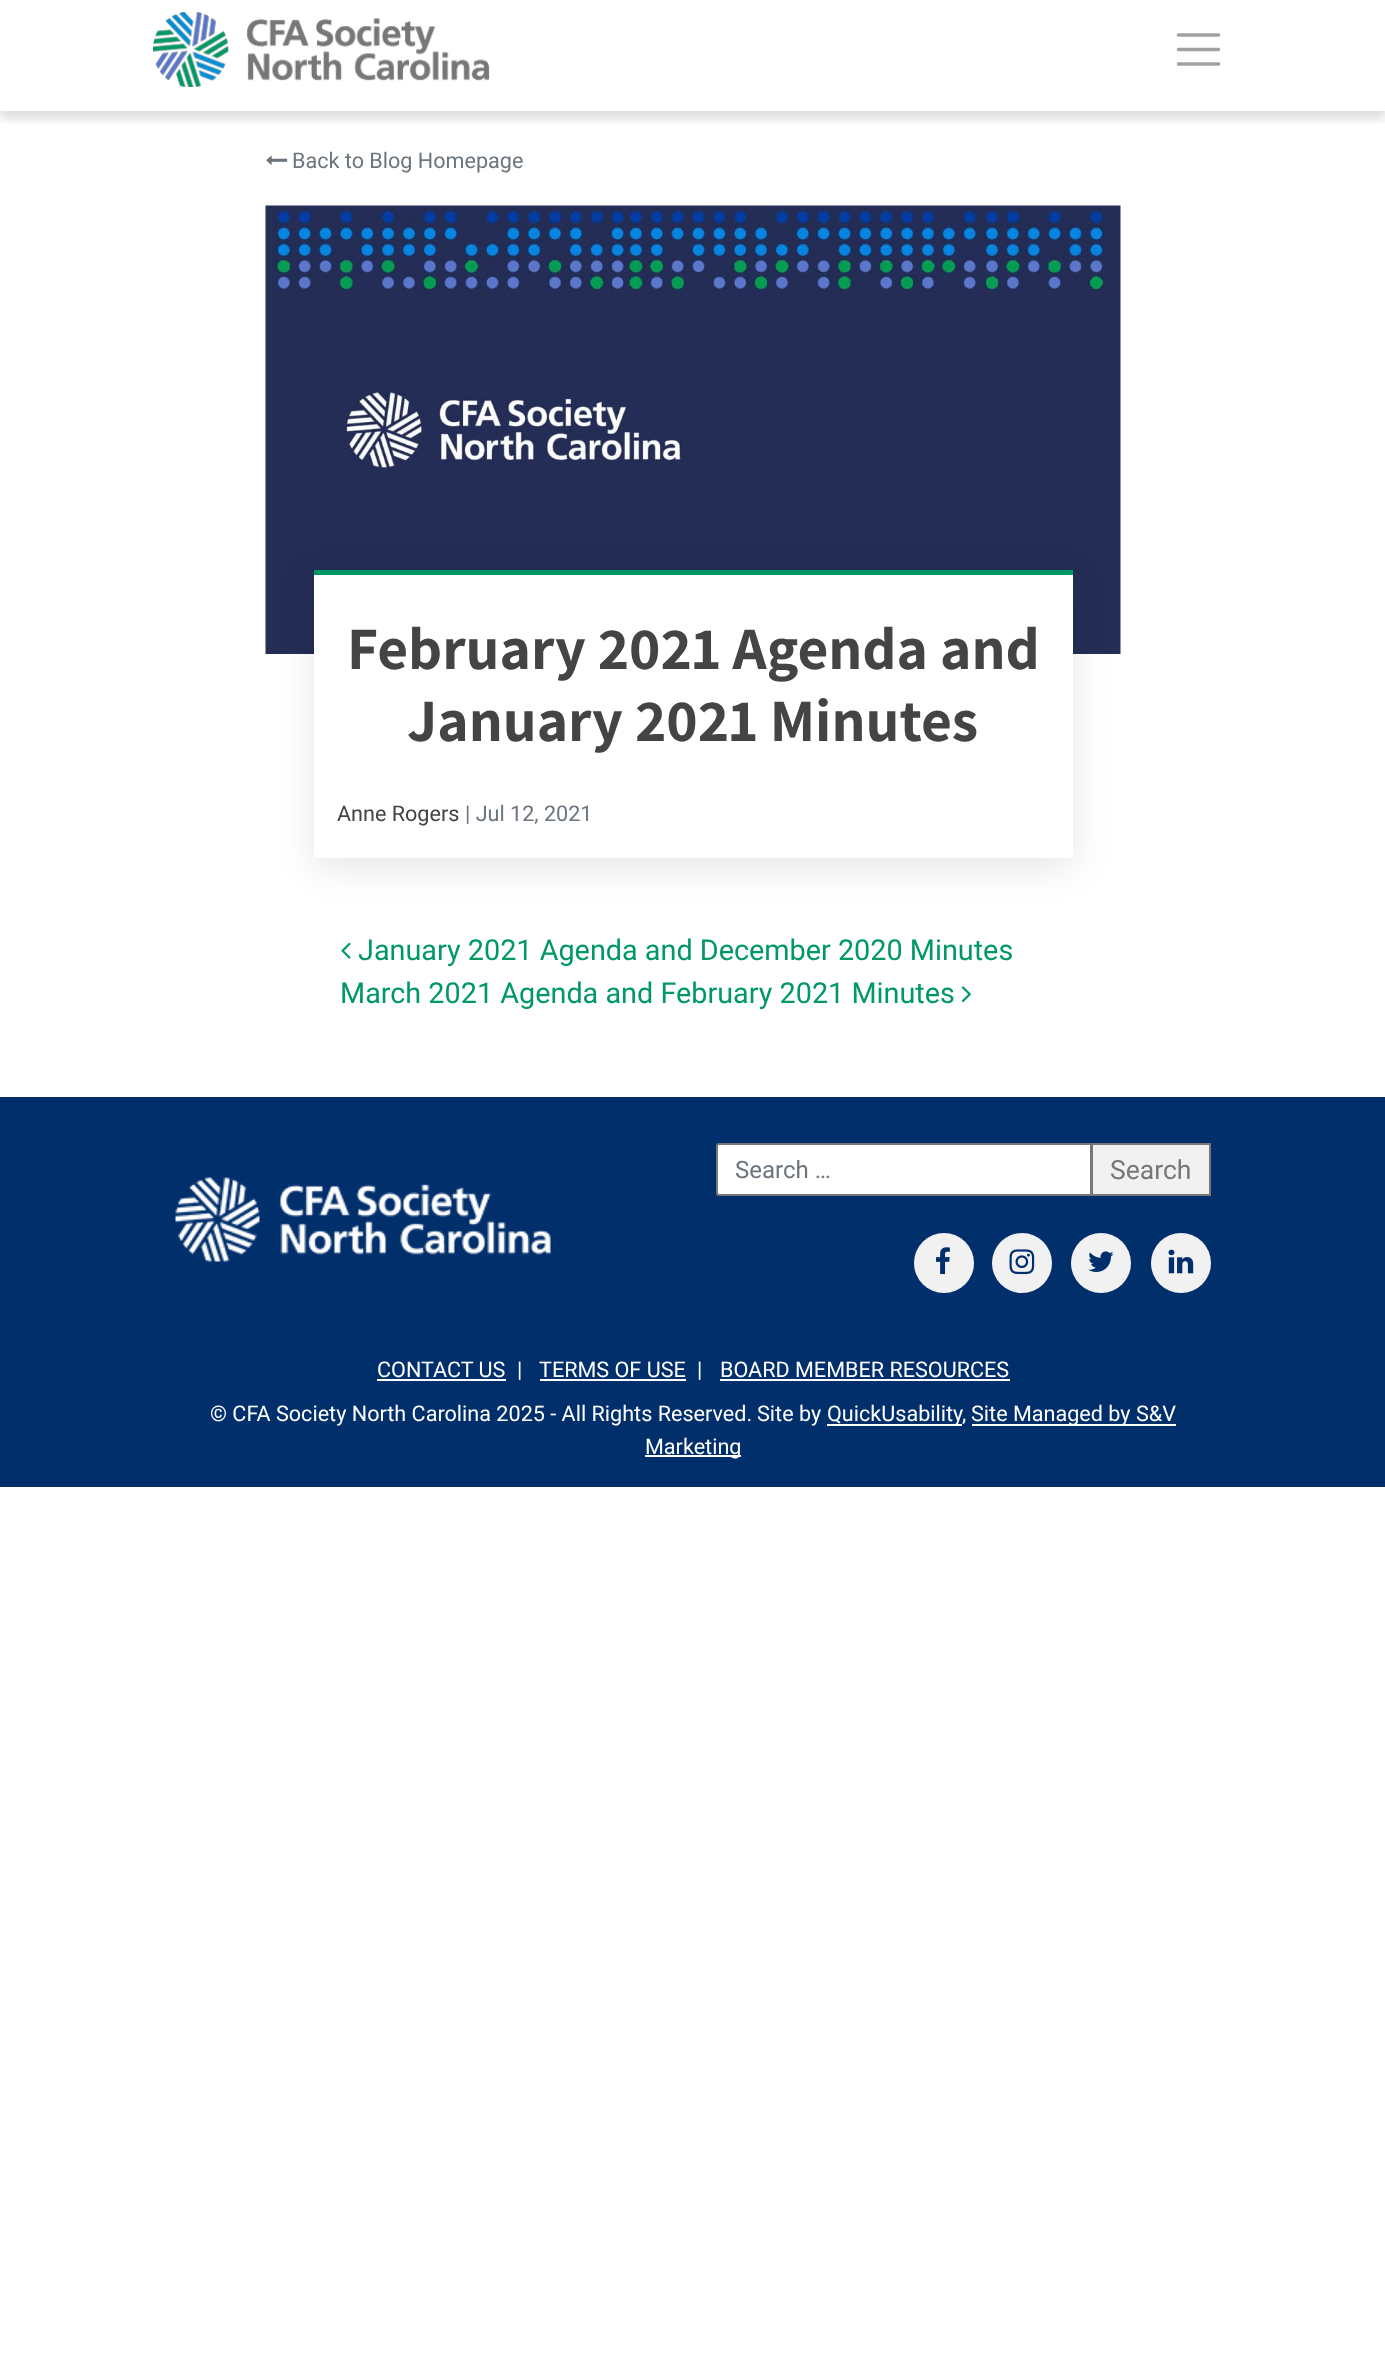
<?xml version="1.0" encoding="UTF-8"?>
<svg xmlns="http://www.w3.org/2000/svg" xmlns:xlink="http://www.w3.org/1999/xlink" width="1385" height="2356">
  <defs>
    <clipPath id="clip1"><rect x="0" y="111" width="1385" height="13" /></clipPath>
  </defs>
  <rect width="100%" height="100%" fill="#ffffff" />
  <g clip-path="url(#clip1)">
    <rect y="8" width="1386" height="111" fill="#000000" fill-opacity="0.13" filter="blur(5px)" />
  </g>
  <image x="153" y="12" width="337" height="75" xlink:href="image1.png" />
  <path d="M 1178.5 35 h 40 m -40 14.5 h 40 m -40 14.5 h 40" fill="none" stroke="#a2a1a1" stroke-width="3.6" stroke-linecap="round" />
  <image x="266" y="155" width="22" height="10" xlink:href="image2.png" />
  <image x="265" y="205" width="856" height="449" xlink:href="image3.png" />
  <rect x="314" y="579" width="759" height="288" fill="#000000" fill-opacity="0.1" filter="blur(18px)" />
  <rect x="314" y="575" width="759" height="283" fill="#ffffff" />
  <rect x="314" y="570" width="759" height="5" fill="#009966" />
  <image x="341" y="942" width="10" height="17" xlink:href="image4.png" />
  <image x="961" y="986" width="10" height="17" xlink:href="image5.png" />
  <rect y="1097" width="1385" height="390" fill="#002f6c" />
  <rect x="718" y="1145" width="372" height="49" fill="#ffffff" />
  <rect x="1092" y="1144" width="118" height="51" fill="#f1f1f1" stroke="#777777" stroke-width="2" />
  <path d="M 719 1144 h 372 v 51 h -372 c -1 0 -2 -1 -2 -2 v -47 c 0 -1 1 -2 2 -2 z" fill="none" stroke="#777777" stroke-width="2" />
  <circle cx="944" cy="1263" r="30" fill="#f1f1f1" />
  <image x="936" y="1247" width="14" height="28" xlink:href="image6.png" />
  <circle cx="1022" cy="1263" r="30" fill="#f1f1f1" />
  <image x="1009" y="1249" width="26" height="26" xlink:href="image7.png" />
  <circle cx="1101" cy="1263" r="30" fill="#f1f1f1" />
  <image x="1088" y="1251" width="26" height="21" xlink:href="image8.png" />
  <circle cx="1181" cy="1263" r="30" fill="#f1f1f1" />
  <image x="1168" y="1249" width="26" height="25" xlink:href="image9.png" />
  <image x="175" y="1177" width="376" height="85" xlink:href="image10.png" />
  <rect x="377" y="1379" width="129" height="2" fill="#ffffff" />
  <rect x="540" y="1379" width="146" height="2" fill="#ffffff" />
  <rect x="720" y="1379" width="290" height="2" fill="#ffffff" />
  <rect x="827" y="1424" width="135" height="2" fill="#ffffff" />
  <rect x="972" y="1424" width="204" height="2" fill="#ffffff" />
  <rect x="645" y="1455" width="96" height="2" fill="#ffffff" />
  <text x="292" y="168" style="font-family: Roboto; font-size: 21.6px; fill: #6c757d">Back to Blog Homepage</text>
  <text x="347" y="669" style="font-family: Assistant; font-size: 60px; font-weight: bold; fill: #454343">February 2021 Agenda and</text>
  <text x="407" y="741" style="font-family: Assistant; font-size: 60px; font-weight: bold; fill: #454343">January 2021 Minutes</text>
  <text x="337" y="821" style="font-family: Roboto; font-size: 21.6px; fill: #454343">Anne Rogers</text>
  <text x="465" y="821" style="font-family: Roboto; font-size: 21.6px; fill: #6c757d">| Jul 12, 2021</text>
  <text x="358" y="960" style="font-family: Roboto; font-size: 28.8px; fill: #009966">January 2021 Agenda and December 2020 Minutes</text>
  <text x="340" y="1003" style="font-family: Roboto; font-size: 28.8px; fill: #009966">March 2021 Agenda and February 2021 Minutes</text>
  <text x="735" y="1178" style="font-family: Roboto; font-size: 24px; fill: #6c757d">Search …</text>
  <text x="1110" y="1179" style="font-family: Roboto; font-size: 26.5px; fill: #777777">Search</text>
  <text x="377" y="1377" style="font-family: Roboto; font-size: 21.6px; fill: #ffffff">CONTACT US</text>
  <text x="517" y="1377" style="font-family: Roboto; font-size: 21.6px; fill: #ffffff">|</text>
  <text x="539" y="1377" style="font-family: Roboto; font-size: 21.6px; fill: #ffffff">TERMS OF USE</text>
  <text x="697" y="1377" style="font-family: Roboto; font-size: 21.6px; fill: #ffffff">|</text>
  <text x="720" y="1377" style="font-family: Roboto; font-size: 21.6px; fill: #ffffff">BOARD MEMBER RESOURCES</text>
  <text x="210" y="1421" style="font-family: Roboto; font-size: 21.6px; fill: #ffffff">© CFA Society North Carolina 2025 - All Rights Reserved.</text>
  <text x="757" y="1421" style="font-family: Roboto; font-size: 21.6px; fill: #ffffff">Site by</text>
  <text x="827" y="1421" style="font-family: Roboto; font-size: 21.6px; fill: #ffffff">QuickUsability</text>
  <text x="962" y="1421" style="font-family: Roboto; font-size: 21.6px; fill: #ffffff">,</text>
  <text x="971" y="1421" style="font-family: Roboto; font-size: 21.6px; fill: #ffffff">Site Managed by S&amp;V</text>
  <text x="645" y="1454" style="font-family: Roboto; font-size: 21.6px; fill: #ffffff">Marketing</text>
</svg>
